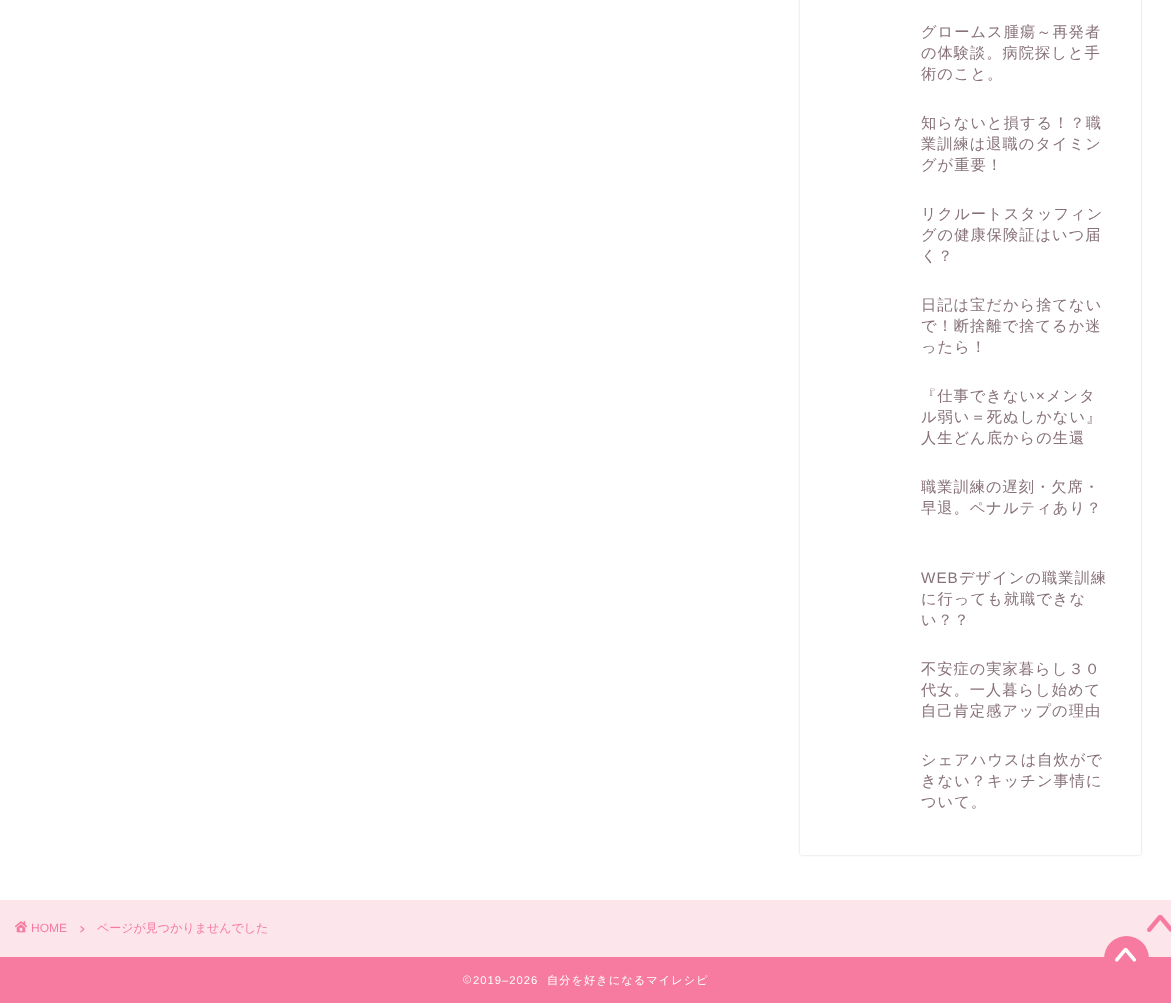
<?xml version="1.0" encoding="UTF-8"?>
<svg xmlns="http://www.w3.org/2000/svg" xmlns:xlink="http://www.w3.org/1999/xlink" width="1171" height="1003">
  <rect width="100%" height="100%" fill="#ffffff" />
  <rect x="800" y="-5" width="341" height="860" rx="2" fill="#000000" fill-opacity="0.18" filter="blur(1px)" />
  <rect x="800" y="-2" width="341" height="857" rx="2" fill="#ffffff" />
  <rect y="900" width="1171" height="57" fill="#fde5ec" />
  <image x="15" y="921" width="12" height="12" xlink:href="image1.png" />
  <image x="80" y="926" width="5" height="7" xlink:href="image2.png" />
  <image x="1147" y="914" width="24" height="18" xlink:href="image3.png" />
  <rect y="957" width="1171" height="46" fill="#f77ba0" />
  <image x="463" y="975" width="8" height="9" xlink:href="image4.png" />
  <circle cx="1126.5" cy="958.5" r="22.5" fill="#f77ba0" />
  <image x="1115" y="947" width="22" height="15" xlink:href="image5.png" />
  <text x="921" y="37" style="font-family: WenQuanYi Zen Hei; font-size: 15.25px; font-weight: 500; letter-spacing: 1px; fill: #877179">グロームス腫瘍～再発者</text>
  <text x="921" y="58" style="font-family: WenQuanYi Zen Hei; font-size: 15.25px; font-weight: 500; letter-spacing: 1px; fill: #877179">の体験談。病院探しと手</text>
  <text x="921" y="79" style="font-family: WenQuanYi Zen Hei; font-size: 15.25px; font-weight: 500; letter-spacing: 1px; fill: #877179">術のこと。</text>
  <text x="921" y="128" style="font-family: WenQuanYi Zen Hei; font-size: 15.25px; font-weight: 500; letter-spacing: 1px; fill: #877179">知らないと損する！？職</text>
  <text x="921" y="149" style="font-family: WenQuanYi Zen Hei; font-size: 15.25px; font-weight: 500; letter-spacing: 1px; fill: #877179">業訓練は退職のタイミン</text>
  <text x="921" y="170" style="font-family: WenQuanYi Zen Hei; font-size: 15.25px; font-weight: 500; letter-spacing: 1px; fill: #877179">グが重要！</text>
  <text x="921" y="219" style="font-family: WenQuanYi Zen Hei; font-size: 15.25px; font-weight: 500; letter-spacing: 1px; fill: #877179">リクルートスタッフィン</text>
  <text x="921" y="240" style="font-family: WenQuanYi Zen Hei; font-size: 15.25px; font-weight: 500; letter-spacing: 1px; fill: #877179">グの健康保険証はいつ届</text>
  <text x="921" y="261" style="font-family: WenQuanYi Zen Hei; font-size: 15.25px; font-weight: 500; letter-spacing: 1px; fill: #877179">く？</text>
  <text x="921" y="310" style="font-family: WenQuanYi Zen Hei; font-size: 15.25px; font-weight: 500; letter-spacing: 1px; fill: #877179">日記は宝だから捨てない</text>
  <text x="921" y="331" style="font-family: WenQuanYi Zen Hei; font-size: 15.25px; font-weight: 500; letter-spacing: 1px; fill: #877179">で！断捨離で捨てるか迷</text>
  <text x="921" y="352" style="font-family: WenQuanYi Zen Hei; font-size: 15.25px; font-weight: 500; letter-spacing: 1px; fill: #877179">ったら！</text>
  <text x="921" y="401" style="font-family: WenQuanYi Zen Hei; font-size: 15.25px; font-weight: 500; letter-spacing: 1px; fill: #877179">『仕事できない</text>
  <text x="1036" y="401" style="font-family: Liberation Sans; font-size: 15.25px; letter-spacing: 1px; fill: #877179">×</text>
  <text x="1046" y="401" style="font-family: WenQuanYi Zen Hei; font-size: 15.25px; font-weight: 500; letter-spacing: 1px; fill: #877179">メンタ</text>
  <text x="921" y="422" style="font-family: WenQuanYi Zen Hei; font-size: 15.25px; font-weight: 500; letter-spacing: 1px; fill: #877179">ル弱い＝死ぬしかない』</text>
  <text x="921" y="443" style="font-family: WenQuanYi Zen Hei; font-size: 15.25px; font-weight: 500; letter-spacing: 1px; fill: #877179">人生どん底からの生還</text>
  <text x="921" y="492" style="font-family: WenQuanYi Zen Hei; font-size: 15.25px; font-weight: 500; letter-spacing: 1px; fill: #877179">職業訓練の遅刻・欠席・</text>
  <text x="921" y="513" style="font-family: WenQuanYi Zen Hei; font-size: 15.25px; font-weight: 500; letter-spacing: 1px; fill: #877179">早退。ペナルティあり？</text>
  <text x="921" y="583" style="font-family: Liberation Sans; font-size: 15.25px; letter-spacing: 1px; fill: #877179">WEB</text>
  <text x="959" y="583" style="font-family: WenQuanYi Zen Hei; font-size: 15.25px; font-weight: 500; letter-spacing: 1px; fill: #877179">デザインの職業訓練</text>
  <text x="921" y="604" style="font-family: WenQuanYi Zen Hei; font-size: 15.25px; font-weight: 500; letter-spacing: 1px; fill: #877179">に行っても就職できな</text>
  <text x="921" y="625" style="font-family: WenQuanYi Zen Hei; font-size: 15.25px; font-weight: 500; letter-spacing: 1px; fill: #877179">い？？</text>
  <text x="921" y="674" style="font-family: WenQuanYi Zen Hei; font-size: 15.25px; font-weight: 500; letter-spacing: 1px; fill: #877179">不安症の実家暮らし３０</text>
  <text x="921" y="695" style="font-family: WenQuanYi Zen Hei; font-size: 15.25px; font-weight: 500; letter-spacing: 1px; fill: #877179">代女。一人暮らし始めて</text>
  <text x="921" y="716" style="font-family: WenQuanYi Zen Hei; font-size: 15.25px; font-weight: 500; letter-spacing: 1px; fill: #877179">自己肯定感アップの理由</text>
  <text x="921" y="765" style="font-family: WenQuanYi Zen Hei; font-size: 15.25px; font-weight: 500; letter-spacing: 1px; fill: #877179">シェアハウスは自炊がで</text>
  <text x="921" y="786" style="font-family: WenQuanYi Zen Hei; font-size: 15.25px; font-weight: 500; letter-spacing: 1px; fill: #877179">きない？キッチン事情に</text>
  <text x="921" y="807" style="font-family: WenQuanYi Zen Hei; font-size: 15.25px; font-weight: 500; letter-spacing: 1px; fill: #877179">ついて。</text>
  <text x="31" y="932" style="font-family: Liberation Sans; font-size: 12px; fill: #f77ba0">HOME</text>
  <text x="97" y="932" style="font-family: WenQuanYi Zen Hei; font-size: 12px; font-weight: 500; fill: #f77ba0">ページが見つかりませんでした</text>
  <text x="473" y="984" style="font-family: Liberation Sans; font-size: 11.25px; letter-spacing: 1px; fill: #ffffff">2019–2026</text>
  <text x="547" y="984" style="font-family: WenQuanYi Zen Hei; font-size: 11.25px; font-weight: 500; letter-spacing: 1px; fill: #ffffff">自分を好きになるマイレシピ</text>
</svg>
